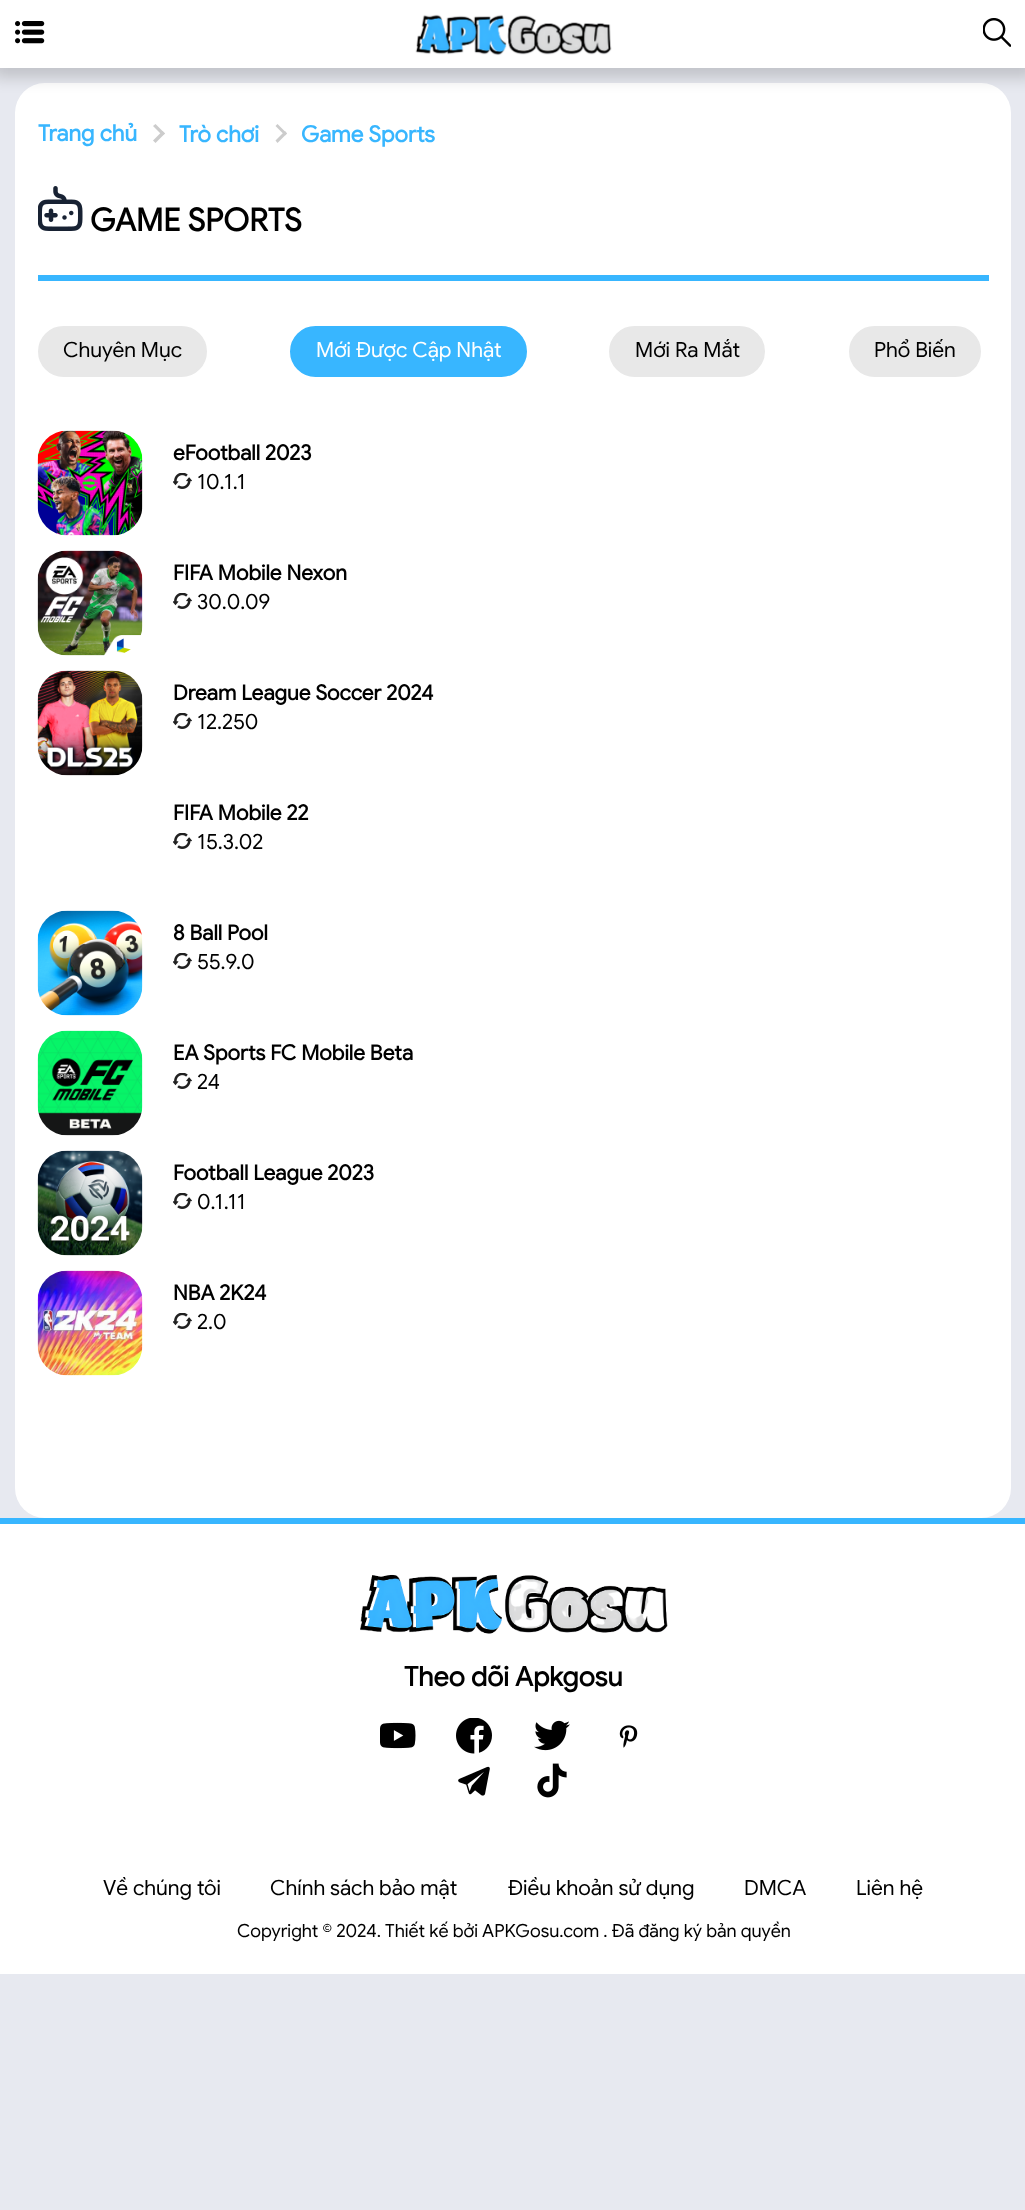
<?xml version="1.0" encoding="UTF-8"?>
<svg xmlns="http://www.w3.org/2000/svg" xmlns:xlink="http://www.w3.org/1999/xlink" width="1025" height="2210">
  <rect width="100%" height="100%" fill="#e7e9f0" />
  <rect x="15" y="83" width="996" height="1435" rx="30" fill="#ffffff" />
  <rect x="-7" y="-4" width="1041" height="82" fill="#000000" fill-opacity="0.16" filter="blur(7.5px)" />
  <rect width="1025" height="68" fill="#ffffff" />
  <image x="15" y="21" width="30" height="23" xlink:href="image1.png" />
  <image x="415" y="14" width="197" height="42" xlink:href="image2.png" />
  <image x="983" y="18" width="28" height="29" xlink:href="image3.png" />
  <path d="M 153 126 l 2.5 -2 l 9.5 9.5 l -2.5 2 z" fill="#cccccc" />
  <path d="M 153 140.5 l 9.5 -9.5 l 2.5 2.5 l -9.5 9.5 z" fill="#cccccc" />
  <path d="M 275.5 126 l 2 -2 l 9.5 9.5 l -2 2 z" fill="#cccccc" />
  <path d="M 275.5 140.5 l 9.5 -9.5 l 2 2.5 l -9.5 9.5 z" fill="#cccccc" />
  <image x="38" y="186" width="45" height="45" xlink:href="image4.png" />
  <rect x="38" y="275" width="951" height="6" fill="#38b6ff" />
  <rect x="39" y="327" width="167" height="49" rx="24.5" fill="#e8e8e8" stroke="#e8e8e8" stroke-width="2" />
  <rect x="291" y="327" width="235" height="49" rx="24.5" fill="#38b6ff" stroke="#38b6ff" stroke-width="2" />
  <rect x="610" y="327" width="154" height="49" rx="24.5" fill="#e8e8e8" stroke="#e8e8e8" stroke-width="2" />
  <rect x="850" y="327" width="130" height="49" rx="24.5" fill="#e8e8e8" stroke="#e8e8e8" stroke-width="2" />
  <image x="37" y="430" width="106" height="106" xlink:href="image5.png" />
  <image x="173" y="473" width="19" height="16" xlink:href="image6.png" />
  <image x="37" y="550" width="106" height="106" xlink:href="image7.png" />
  <image x="173" y="593" width="19" height="16" xlink:href="image6.png" />
  <image x="37" y="670" width="106" height="106" xlink:href="image8.png" />
  <image x="173" y="713" width="19" height="16" xlink:href="image6.png" />
  <image x="173" y="833" width="19" height="16" xlink:href="image6.png" />
  <image x="37" y="910" width="106" height="106" xlink:href="image9.png" />
  <image x="173" y="953" width="19" height="16" xlink:href="image6.png" />
  <image x="37" y="1030" width="106" height="106" xlink:href="image10.png" />
  <image x="173" y="1073" width="19" height="16" xlink:href="image6.png" />
  <image x="37" y="1150" width="106" height="106" xlink:href="image11.png" />
  <image x="173" y="1193" width="19" height="16" xlink:href="image6.png" />
  <image x="37" y="1270" width="106" height="106" xlink:href="image12.png" />
  <image x="173" y="1313" width="19" height="16" xlink:href="image6.png" />
  <rect y="1518" width="1025" height="6" fill="#38b6ff" />
  <rect y="1524" width="1025" height="450" fill="#ffffff" />
  <image x="360" y="1574" width="308" height="60" xlink:href="image13.png" />
  <image x="380" y="1722" width="36" height="27" xlink:href="image14.png" />
  <image x="456" y="1718" width="36" height="36" xlink:href="image15.png" />
  <image x="534" y="1720" width="36" height="31" xlink:href="image16.png" />
  <image x="619" y="1725" width="19" height="23" xlink:href="image17.png" />
  <image x="458" y="1766" width="32" height="30" xlink:href="image18.png" />
  <image x="537" y="1763" width="30" height="35" xlink:href="image19.png" />
  <text x="38" y="141" style="font-family: Google Sans; font-size: 22.5px; font-weight: bold; fill: #38b6ff">Trang chủ</text>
  <text x="179" y="142" style="font-family: Google Sans; font-size: 22.5px; font-weight: bold; fill: #38b6ff">Trò chơi</text>
  <text x="301" y="142" style="font-family: Google Sans; font-size: 22.5px; font-weight: bold; fill: #38b6ff">Game Sports</text>
  <text x="90" y="231" style="font-family: Google Sans; font-size: 31.5px; font-weight: bold; fill: #000000">GAME SPORTS</text>
  <text x="63" y="357" style="font-family: Google Sans; font-size: 21px; fill: #000000">Chuyên Mục</text>
  <text x="316" y="357" style="font-family: Google Sans; font-size: 21px; fill: #ffffff">Mới Được Cập Nhật</text>
  <text x="635" y="357" style="font-family: Google Sans; font-size: 21px; fill: #000000">Mới Ra Mắt</text>
  <text x="874" y="357" style="font-family: Google Sans; font-size: 21px; fill: #000000">Phổ Biến</text>
  <text x="173" y="460" style="font-family: Google Sans; font-size: 21px; font-weight: bold; fill: #000000">eFootball 2023</text>
  <text x="197" y="489" style="font-family: Google Sans; font-size: 21px; fill: #000000">10.1.1</text>
  <text x="173" y="580" style="font-family: Google Sans; font-size: 21px; font-weight: bold; fill: #000000">FIFA Mobile Nexon</text>
  <text x="197" y="609" style="font-family: Google Sans; font-size: 21px; fill: #000000">30.0.09</text>
  <text x="173" y="700" style="font-family: Google Sans; font-size: 21px; font-weight: bold; fill: #000000">Dream League Soccer 2024</text>
  <text x="197" y="729" style="font-family: Google Sans; font-size: 21px; fill: #000000">12.250</text>
  <text x="173" y="820" style="font-family: Google Sans; font-size: 21px; font-weight: bold; fill: #000000">FIFA Mobile 22</text>
  <text x="197" y="849" style="font-family: Google Sans; font-size: 21px; fill: #000000">15.3.02</text>
  <text x="173" y="940" style="font-family: Google Sans; font-size: 21px; font-weight: bold; fill: #000000">8 Ball Pool</text>
  <text x="197" y="969" style="font-family: Google Sans; font-size: 21px; fill: #000000">55.9.0</text>
  <text x="173" y="1060" style="font-family: Google Sans; font-size: 21px; font-weight: bold; fill: #000000">EA Sports FC Mobile Beta</text>
  <text x="197" y="1089" style="font-family: Google Sans; font-size: 21px; fill: #000000">24</text>
  <text x="173" y="1180" style="font-family: Google Sans; font-size: 21px; font-weight: bold; fill: #000000">Football League 2023</text>
  <text x="197" y="1209" style="font-family: Google Sans; font-size: 21px; fill: #000000">0.1.11</text>
  <text x="173" y="1300" style="font-family: Google Sans; font-size: 21px; font-weight: bold; fill: #000000">NBA 2K24</text>
  <text x="197" y="1329" style="font-family: Google Sans; font-size: 21px; fill: #000000">2.0</text>
  <text x="404" y="1686" style="font-family: Google Sans; font-size: 27px; font-weight: bold; fill: #000000">Theo dõi Apkgosu</text>
  <text x="103" y="1895" style="font-family: Google Sans; font-size: 21px; fill: #000000">Về chúng tôi</text>
  <text x="270" y="1895" style="font-family: Google Sans; font-size: 21px; fill: #000000">Chính sách bảo mật</text>
  <text x="508" y="1895" style="font-family: Google Sans; font-size: 21px; fill: #000000">Điều khoản sử dụng</text>
  <text x="744" y="1895" style="font-family: Google Sans; font-size: 21px; fill: #000000">DMCA</text>
  <text x="856" y="1895" style="font-family: Google Sans; font-size: 21px; fill: #000000">Liên hệ</text>
  <text x="237" y="1937" style="font-family: Google Sans; font-size: 18px; fill: #000000">Copyright © 2024. Thiết kế bởi APKGosu.com . Đã đăng ký bản quyền</text>
</svg>
